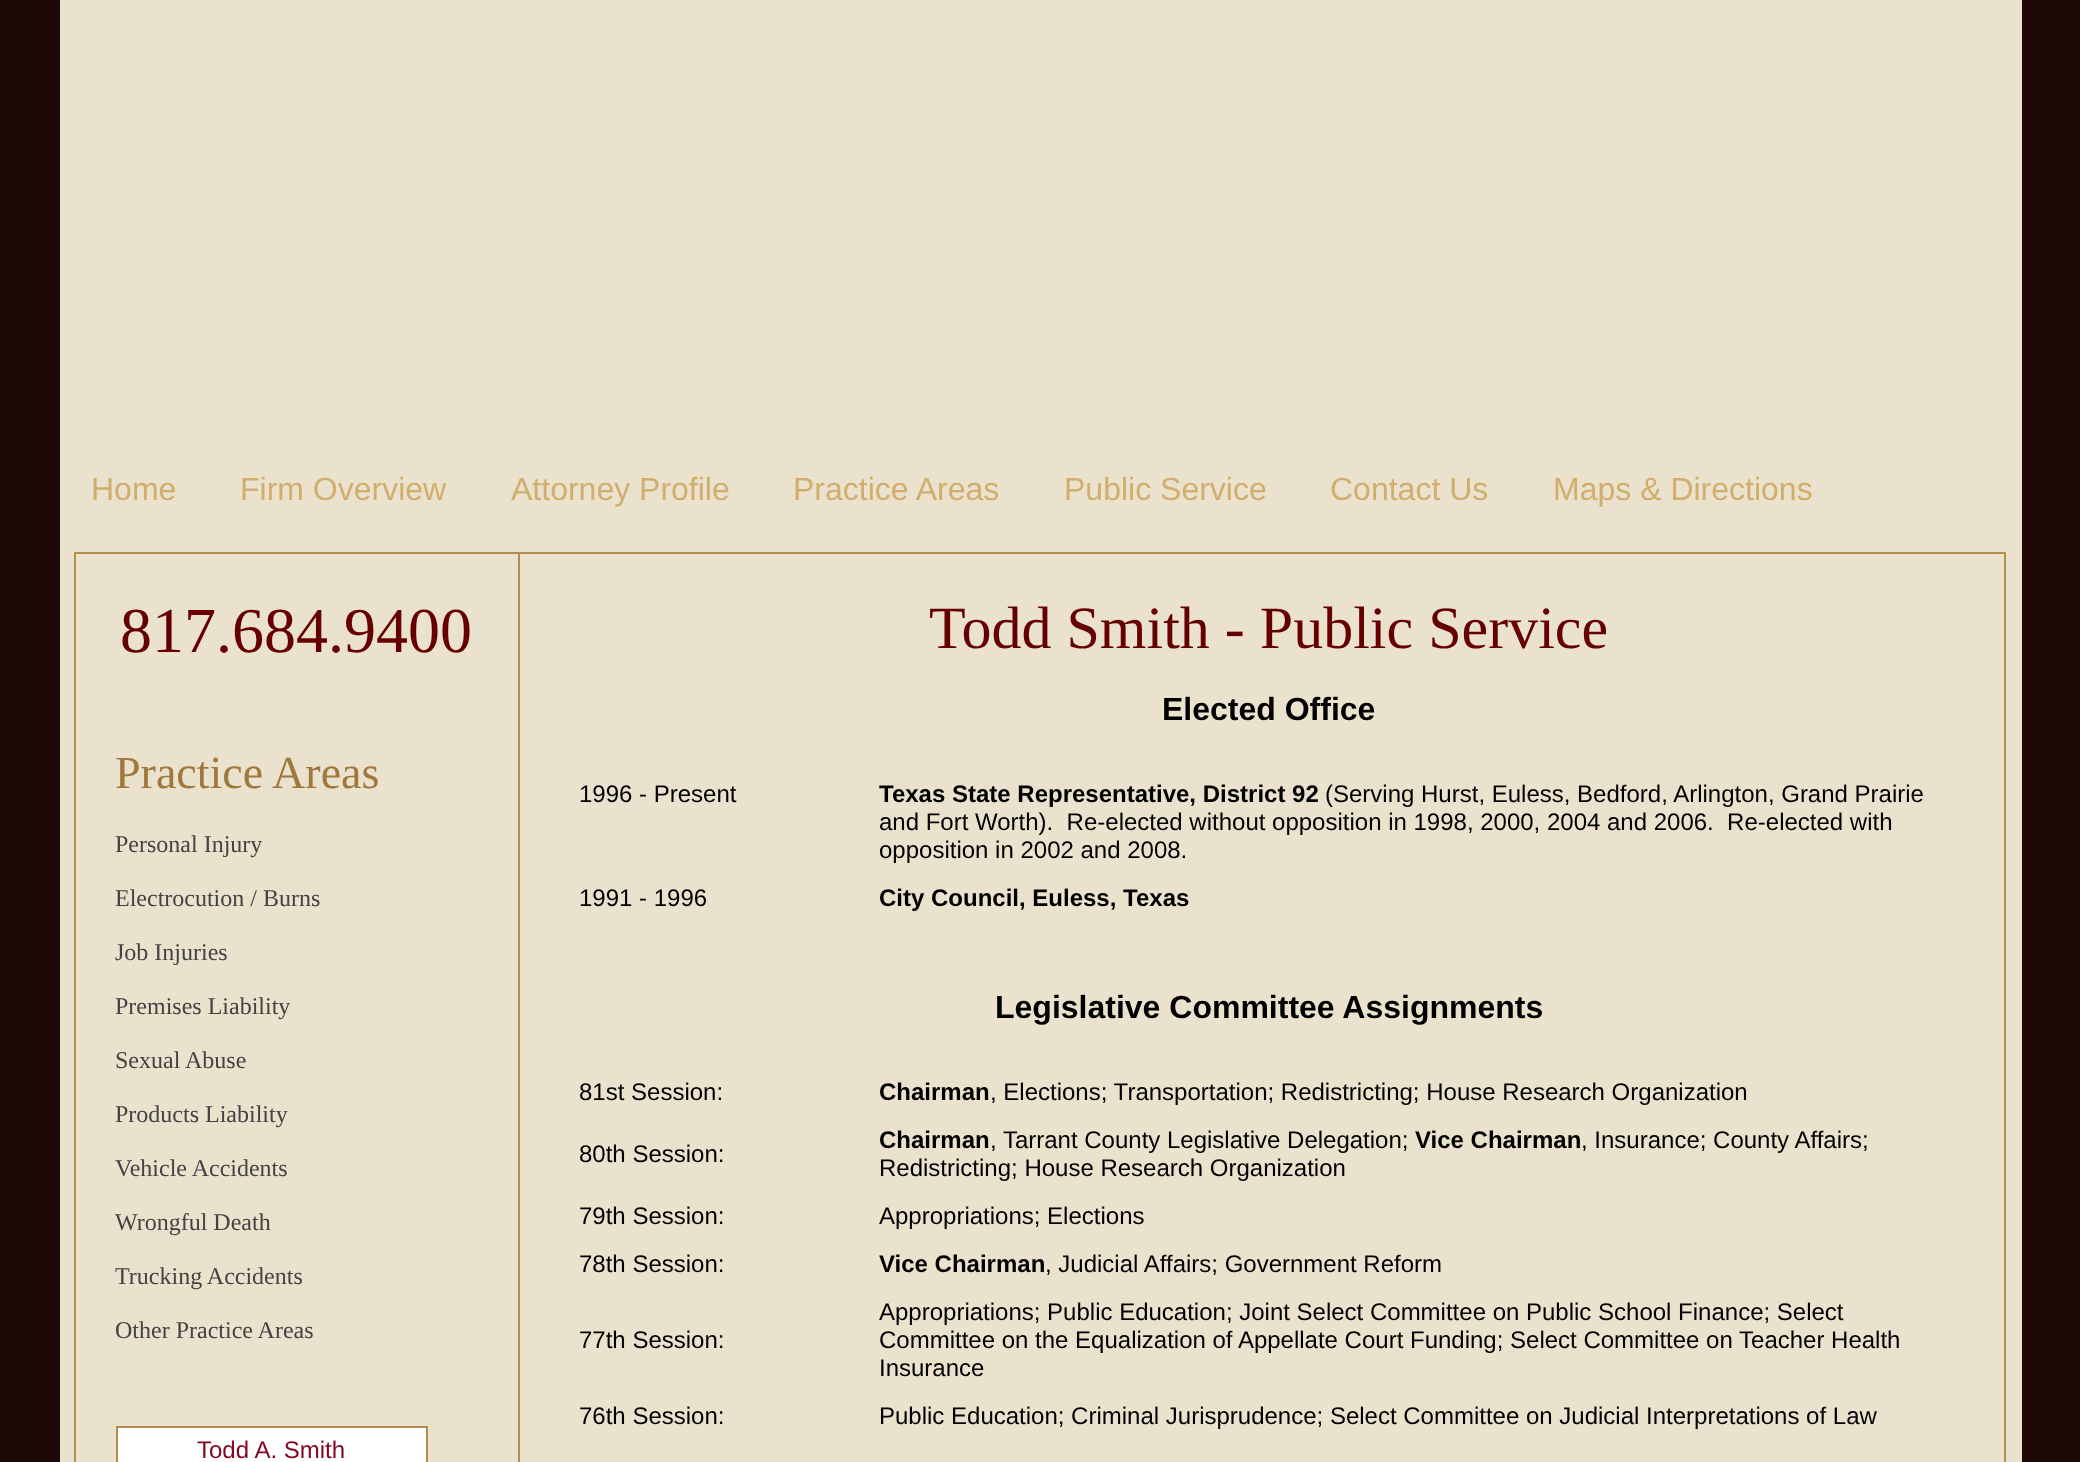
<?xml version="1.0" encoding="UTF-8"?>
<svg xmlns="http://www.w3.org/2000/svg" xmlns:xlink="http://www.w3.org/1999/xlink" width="2080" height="1462">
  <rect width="100%" height="100%" fill="#1e0808" />
  <rect x="60" width="1962" height="1462" fill="#ebe2ce" />
  <rect x="74" y="552" width="1932" height="2" fill="#b18e50" />
  <rect x="2004" y="552" width="2" height="910" fill="#b18e50" />
  <rect x="74" y="552" width="2" height="910" fill="#b18e50" />
  <rect x="118" y="1428" width="308" height="34" fill="#ffffff" />
  <rect x="116" y="1426" width="312" height="2" fill="#b18e50" />
  <rect x="426" y="1426" width="2" height="36" fill="#b18e50" />
  <rect x="116" y="1426" width="2" height="36" fill="#b18e50" />
  <rect x="518" y="554" width="2" height="908" fill="#b18e50" />
  <text x="91" y="500" style="font-family: Liberation Sans; font-size: 32px; fill: #d0ae6d">Home</text>
  <text x="240" y="500" style="font-family: Liberation Sans; font-size: 32px; fill: #d0ae6d">Firm Overview</text>
  <text x="511" y="500" style="font-family: Liberation Sans; font-size: 32px; fill: #d0ae6d">Attorney Profile</text>
  <text x="793" y="500" style="font-family: Liberation Sans; font-size: 32px; fill: #d0ae6d">Practice Areas</text>
  <text x="1064" y="500" style="font-family: Liberation Sans; font-size: 32px; fill: #d0ae6d">Public Service</text>
  <text x="1330" y="500" style="font-family: Liberation Sans; font-size: 32px; fill: #d0ae6d">Contact Us</text>
  <text x="1553" y="500" style="font-family: Liberation Sans; font-size: 32px; fill: #d0ae6d">Maps &amp; Directions</text>
  <text x="120" y="652" style="font-family: Liberation Serif; font-size: 64px; fill: #660000">817.684.9400</text>
  <text x="115" y="788" style="font-family: Liberation Serif; font-size: 46px; fill: #9f783e">Practice Areas</text>
  <text x="115" y="852" style="font-family: Liberation Serif; font-size: 24px; fill: #434343">Personal Injury</text>
  <text x="115" y="906" style="font-family: Liberation Serif; font-size: 24px; fill: #434343">Electrocution / Burns</text>
  <text x="115" y="960" style="font-family: Liberation Serif; font-size: 24px; fill: #434343">Job Injuries</text>
  <text x="115" y="1014" style="font-family: Liberation Serif; font-size: 24px; fill: #434343">Premises Liability</text>
  <text x="115" y="1068" style="font-family: Liberation Serif; font-size: 24px; fill: #434343">Sexual Abuse</text>
  <text x="115" y="1122" style="font-family: Liberation Serif; font-size: 24px; fill: #434343">Products Liability</text>
  <text x="115" y="1176" style="font-family: Liberation Serif; font-size: 24px; fill: #434343">Vehicle Accidents</text>
  <text x="115" y="1230" style="font-family: Liberation Serif; font-size: 24px; fill: #434343">Wrongful Death</text>
  <text x="115" y="1284" style="font-family: Liberation Serif; font-size: 24px; fill: #434343">Trucking Accidents</text>
  <text x="115" y="1338" style="font-family: Liberation Serif; font-size: 24px; fill: #434343">Other Practice Areas</text>
  <text x="197" y="1458" style="font-family: Liberation Sans; font-size: 24px; fill: #83071e">Todd A. Smith</text>
  <text x="929" y="648" style="font-family: Liberation Serif; font-size: 60px; fill: #660000">Todd Smith - Public Service</text>
  <text x="1162" y="720" style="font-family: Liberation Sans; font-size: 32px; font-weight: bold; fill: #000000">Elected Office</text>
  <text x="579" y="802" style="font-family: Liberation Sans; font-size: 24px; fill: #000000">1996 - Present</text>
  <text x="879" y="802" style="font-family: Liberation Sans; font-size: 24px; font-weight: bold; fill: #000000">Texas State Representative, District 92</text>
  <text x="1325" y="802" style="font-family: Liberation Sans; font-size: 24px; fill: #000000">(Serving Hurst, Euless, Bedford, Arlington, Grand Prairie</text>
  <text x="879" y="830" style="font-family: Liberation Sans; font-size: 24px; fill: #000000" xml:space="preserve">and Fort Worth).  Re-elected without opposition in 1998, 2000, 2004 and 2006.  Re-elected with</text>
  <text x="879" y="858" style="font-family: Liberation Sans; font-size: 24px; fill: #000000">opposition in 2002 and 2008.</text>
  <text x="579" y="906" style="font-family: Liberation Sans; font-size: 24px; fill: #000000">1991 - 1996</text>
  <text x="879" y="906" style="font-family: Liberation Sans; font-size: 24px; font-weight: bold; fill: #000000">City Council, Euless, Texas</text>
  <text x="995" y="1018" style="font-family: Liberation Sans; font-size: 32px; font-weight: bold; fill: #000000">Legislative Committee Assignments</text>
  <text x="579" y="1100" style="font-family: Liberation Sans; font-size: 24px; fill: #000000">81st Session:</text>
  <text x="879" y="1100" style="font-family: Liberation Sans; font-size: 24px; font-weight: bold; fill: #000000">Chairman</text>
  <text x="990" y="1100" style="font-family: Liberation Sans; font-size: 24px; fill: #000000">, Elections; Transportation; Redistricting; House Research Organization</text>
  <text x="579" y="1162" style="font-family: Liberation Sans; font-size: 24px; fill: #000000">80th Session:</text>
  <text x="879" y="1148" style="font-family: Liberation Sans; font-size: 24px; font-weight: bold; fill: #000000">Chairman</text>
  <text x="990" y="1148" style="font-family: Liberation Sans; font-size: 24px; fill: #000000">, Tarrant County Legislative Delegation;</text>
  <text x="1415" y="1148" style="font-family: Liberation Sans; font-size: 24px; font-weight: bold; fill: #000000">Vice Chairman</text>
  <text x="1581" y="1148" style="font-family: Liberation Sans; font-size: 24px; fill: #000000">, Insurance; County Affairs;</text>
  <text x="879" y="1176" style="font-family: Liberation Sans; font-size: 24px; fill: #000000">Redistricting; House Research Organization</text>
  <text x="579" y="1224" style="font-family: Liberation Sans; font-size: 24px; fill: #000000">79th Session:</text>
  <text x="879" y="1224" style="font-family: Liberation Sans; font-size: 24px; fill: #000000">Appropriations; Elections</text>
  <text x="579" y="1272" style="font-family: Liberation Sans; font-size: 24px; fill: #000000">78th Session:</text>
  <text x="879" y="1272" style="font-family: Liberation Sans; font-size: 24px; font-weight: bold; fill: #000000">Vice Chairman</text>
  <text x="1045" y="1272" style="font-family: Liberation Sans; font-size: 24px; fill: #000000">, Judicial Affairs; Government Reform</text>
  <text x="579" y="1348" style="font-family: Liberation Sans; font-size: 24px; fill: #000000">77th Session:</text>
  <text x="879" y="1320" style="font-family: Liberation Sans; font-size: 24px; fill: #000000">Appropriations; Public Education; Joint Select Committee on Public School Finance; Select</text>
  <text x="879" y="1348" style="font-family: Liberation Sans; font-size: 24px; fill: #000000">Committee on the Equalization of Appellate Court Funding; Select Committee on Teacher Health</text>
  <text x="879" y="1376" style="font-family: Liberation Sans; font-size: 24px; fill: #000000">Insurance</text>
  <text x="579" y="1424" style="font-family: Liberation Sans; font-size: 24px; fill: #000000">76th Session:</text>
  <text x="879" y="1424" style="font-family: Liberation Sans; font-size: 24px; fill: #000000">Public Education; Criminal Jurisprudence; Select Committee on Judicial Interpretations of Law</text>
</svg>
